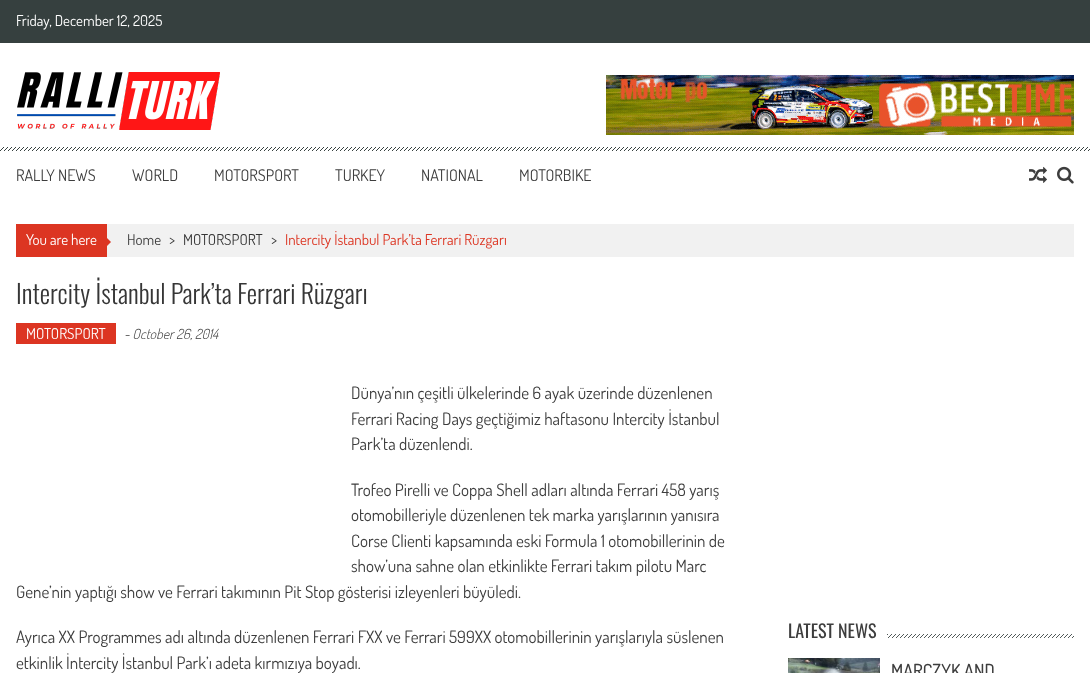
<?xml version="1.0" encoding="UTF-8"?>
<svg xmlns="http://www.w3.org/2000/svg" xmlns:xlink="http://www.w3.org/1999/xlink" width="1090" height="673">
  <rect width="100%" height="100%" fill="#ffffff" />
  <rect width="1090" height="43" fill="#36403f" />
  <image x="0" y="147" width="1090" height="4" xlink:href="image1.png" />
  <image x="17" y="72" width="203" height="58" xlink:href="image2.png" />
  <image x="606" y="75" width="468" height="60" xlink:href="image3.png" />
  <image x="1029" y="166" width="18" height="17" xlink:href="image4.png" />
  <image x="1057" y="166" width="17" height="18" xlink:href="image5.png" />
  <rect x="107" y="224" width="967" height="33" fill="#f1f1f1" />
  <rect x="16" y="224" width="91" height="33" fill="#dc3522" />
  <path d="M 106 247 v -10 l 5 5 z" fill="#dc3522" />
  <rect x="16" y="323" width="100" height="21" fill="#dc3522" />
  <image x="887" y="634" width="187" height="4" xlink:href="image6.png" />
  <image x="788" y="658" width="92" height="15" xlink:href="image7.png" />
  <text x="16" y="26" style="font-family: Dosis; font-size: 15px; fill: #ffffff">Friday, December 12, 2025</text>
  <text x="16" y="181" style="font-family: Dosis; font-size: 16px; fill: #3d3d3d">RALLY NEWS</text>
  <text x="132" y="181" style="font-family: Dosis; font-size: 16px; fill: #3d3d3d">WORLD</text>
  <text x="214" y="181" style="font-family: Dosis; font-size: 16px; fill: #3d3d3d">MOTORSPORT</text>
  <text x="335" y="181" style="font-family: Dosis; font-size: 16px; fill: #3d3d3d">TURKEY</text>
  <text x="421" y="181" style="font-family: Dosis; font-size: 16px; fill: #3d3d3d">NATIONAL</text>
  <text x="519" y="181" style="font-family: Dosis; font-size: 16px; fill: #3d3d3d">MOTORBIKE</text>
  <text x="26" y="245" style="font-family: Dosis; font-size: 15px; fill: #ffffff">You are here</text>
  <text x="127" y="245" style="font-family: Dosis; font-size: 15px; fill: #3d3d3d">Home</text>
  <text x="169" y="245" style="font-family: Dosis; font-size: 15px; fill: #3d3d3d">&gt;</text>
  <text x="183" y="245" style="font-family: Dosis; font-size: 15px; fill: #363636">MOTORSPORT</text>
  <text x="271" y="245" style="font-family: Dosis; font-size: 15px; fill: #3d3d3d">&gt;</text>
  <text x="285" y="245" style="font-family: Dosis; font-size: 15px; fill: #dc3522">Intercity İstanbul Park’ta Ferrari Rüzgarı</text>
  <text x="16" y="304" style="font-family: Oswald; font-size: 26px; font-weight: 300; fill: #363636">Intercity İstanbul Park’ta Ferrari Rüzgarı</text>
  <text x="26" y="339" style="font-family: Dosis; font-size: 15px; fill: #ffffff">MOTORSPORT</text>
  <text x="124" y="339" style="font-family: Dosis; font-size: 14px; font-weight: 300; font-style: italic; fill: #3d3d3d">- October 26, 2014</text>
  <text x="351" y="399" style="font-family: Dosis; font-size: 17px; fill: #3d3d3d">Dünya’nın çeşitli ülkelerinde 6 ayak üzerinde düzenlenen</text>
  <text x="351" y="425" style="font-family: Dosis; font-size: 17px; fill: #3d3d3d">Ferrari Racing Days geçtiğimiz haftasonu Intercity İstanbul</text>
  <text x="351" y="450" style="font-family: Dosis; font-size: 17px; fill: #3d3d3d">Park’ta düzenlendi.</text>
  <text x="351" y="496" style="font-family: Dosis; font-size: 17px; fill: #3d3d3d">Trofeo Pirelli ve Coppa Shell adları altında Ferrari 458 yarış</text>
  <text x="351" y="521" style="font-family: Dosis; font-size: 17px; fill: #3d3d3d">otomobilleriyle düzenlenen tek marka yarışlarının yanısıra</text>
  <text x="351" y="547" style="font-family: Dosis; font-size: 17px; fill: #3d3d3d">Corse Clienti kapsamında eski Formula 1 otomobillerinin de</text>
  <text x="351" y="572" style="font-family: Dosis; font-size: 17px; fill: #3d3d3d">show’una sahne olan etkinlikte Ferrari takım pilotu Marc</text>
  <text x="16" y="598" style="font-family: Dosis; font-size: 17px; fill: #3d3d3d">Gene’nin yaptığı show ve Ferrari takımının Pit Stop gösterisi izleyenleri büyüledi.</text>
  <text x="16" y="643" style="font-family: Dosis; font-size: 17px; fill: #3d3d3d">Ayrıca XX Programmes adı altında düzenlenen Ferrari FXX ve Ferrari 599XX otomobillerinin yarışlarıyla süslenen</text>
  <text x="16" y="669" style="font-family: Dosis; font-size: 17px; fill: #3d3d3d">etkinlik İntercity İstanbul Park’ı adeta kırmızıya boyadı.</text>
  <text x="788" y="638" style="font-family: Oswald; font-size: 18px; fill: #3d3d3d">LATEST NEWS</text>
  <text x="891" y="677" style="font-family: Dosis; font-size: 18px; font-weight: 500; fill: #3d3d3d">MARCZYK AND</text>
</svg>
